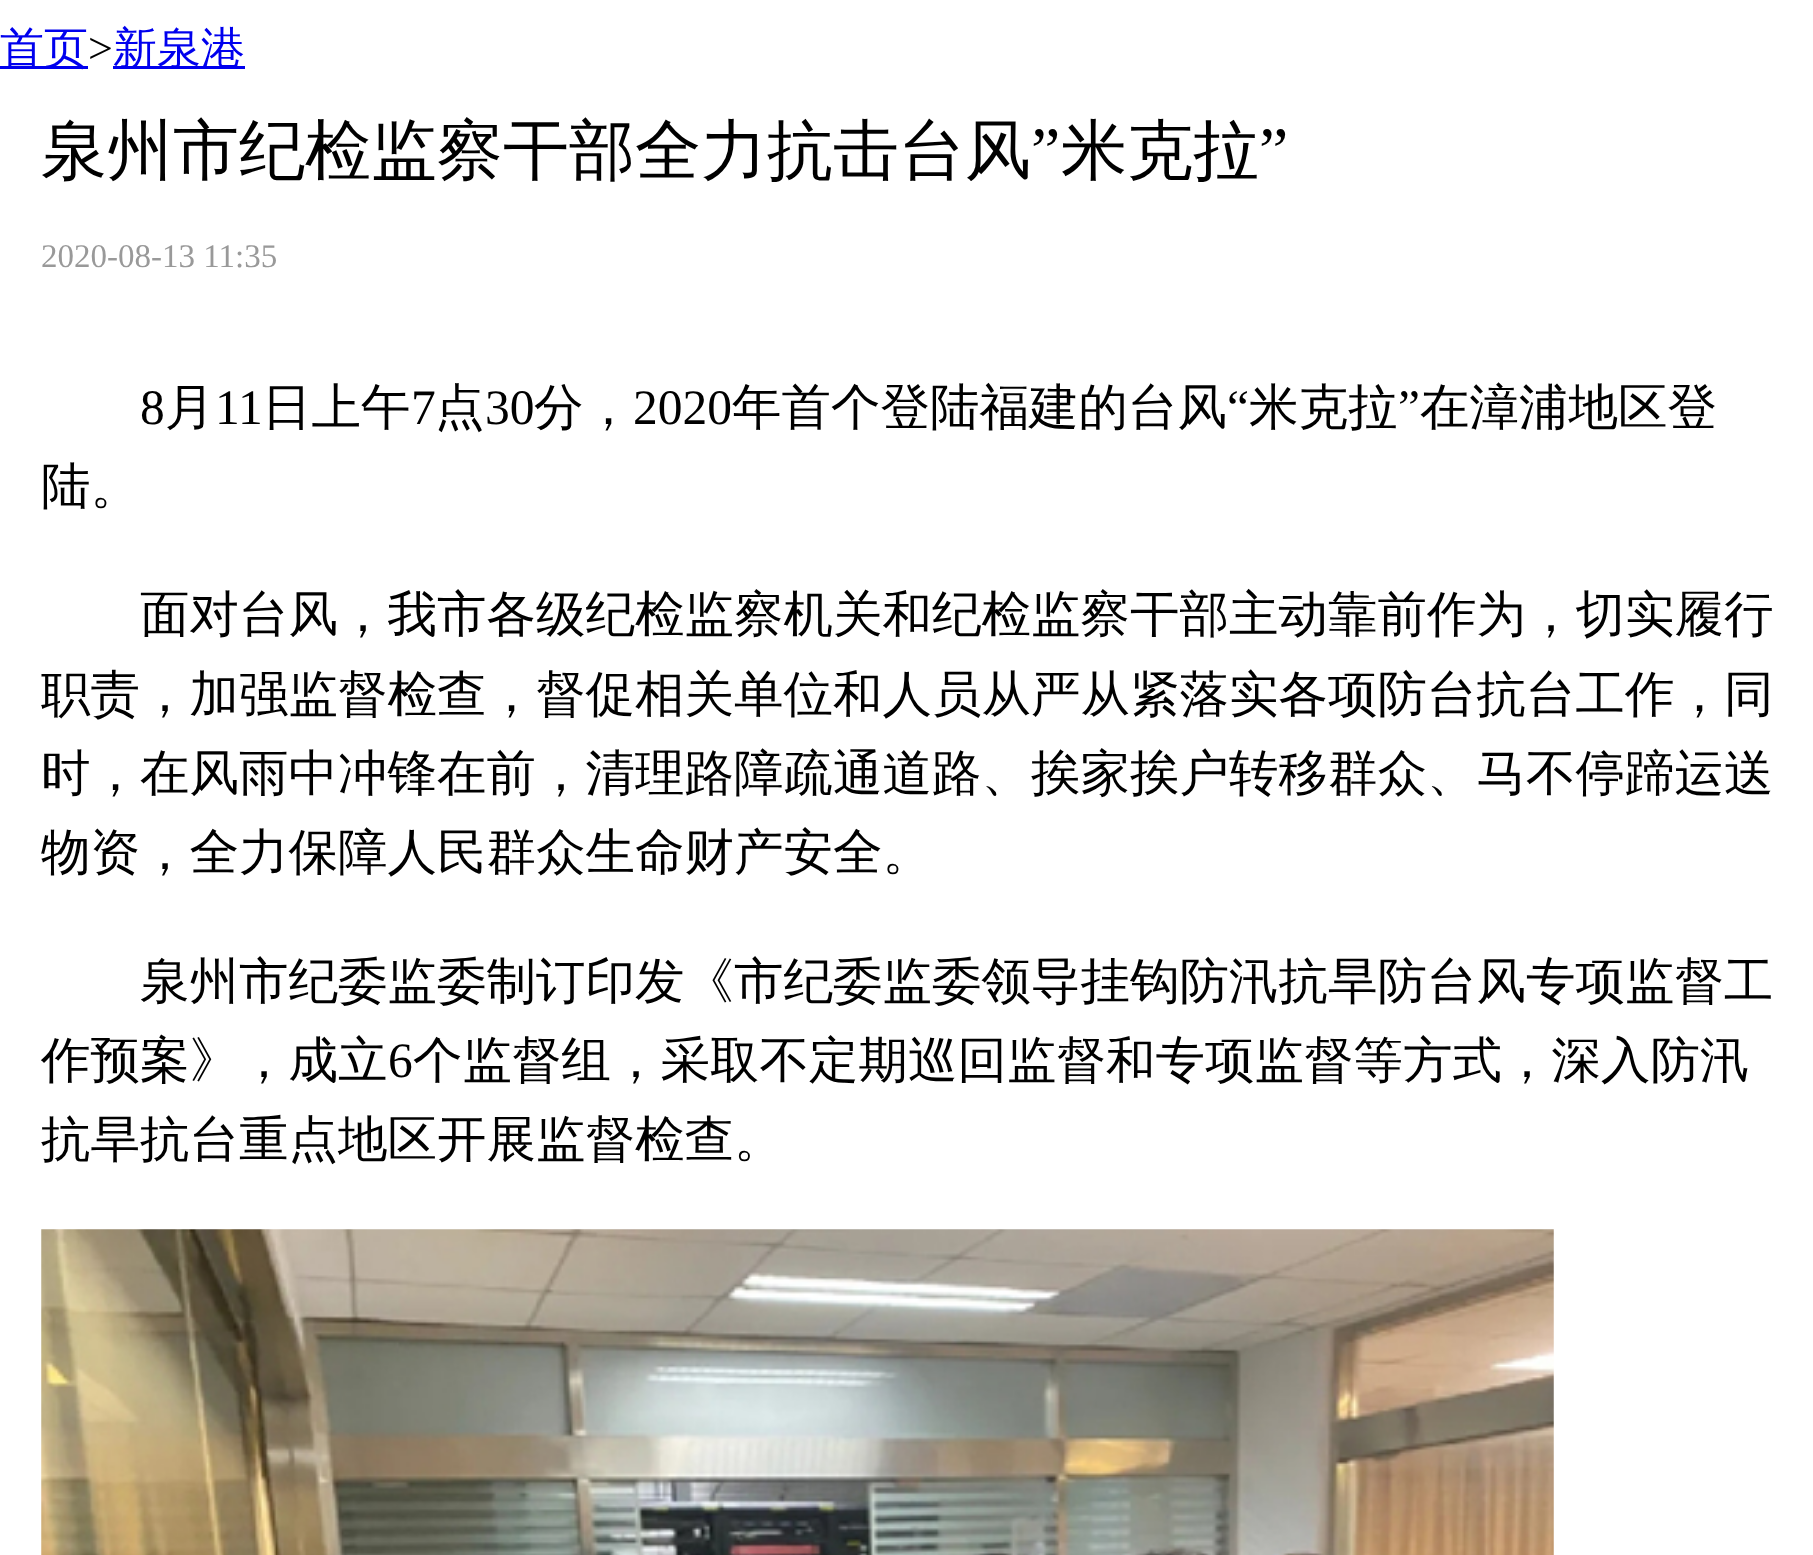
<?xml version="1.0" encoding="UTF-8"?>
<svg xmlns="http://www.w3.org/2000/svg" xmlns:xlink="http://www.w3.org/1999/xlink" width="1813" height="1555">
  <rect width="100%" height="100%" fill="#ffffff" />
  <rect y="66" width="88" height="3" fill="#0000ee" />
  <rect x="113" y="66" width="132" height="3" fill="#0000ee" />
  <image x="41" y="1229" width="1513" height="326" xlink:href="image1.png" />
  <text x="0" y="63" style="font-family: WenQuanYi Zen Hei; font-size: 44px; font-weight: 500; fill: #0000ee">首页</text>
  <text x="88" y="63" style="font-family: Liberation Serif; font-size: 44px; fill: #000000">&gt;</text>
  <text x="113" y="63" style="font-family: WenQuanYi Zen Hei; font-size: 44px; font-weight: 500; fill: #0000ee">新泉港</text>
  <text x="41" y="173" style="font-family: WenQuanYi Zen Hei; font-size: 66px; font-weight: 500; fill: #000000">泉州市纪检监察干部全力抗击台风</text>
  <text x="1031" y="173" style="font-family: Liberation Serif; font-size: 66px; fill: #000000">”</text>
  <text x="1061" y="173" style="font-family: WenQuanYi Zen Hei; font-size: 66px; font-weight: 500; fill: #000000">米克拉</text>
  <text x="1259" y="173" style="font-family: Liberation Serif; font-size: 66px; fill: #000000">”</text>
  <text x="41" y="267" style="font-family: Liberation Serif; font-size: 33px; fill: #999999">2020-08-13 11:35</text>
  <text x="140" y="424" style="font-family: Liberation Serif; font-size: 49.5px; fill: #000000">8</text>
  <text x="165" y="424" style="font-family: WenQuanYi Zen Hei; font-size: 49.5px; font-weight: 500; fill: #000000">月</text>
  <text x="215" y="424" style="font-family: Liberation Serif; font-size: 49.5px; fill: #000000">11</text>
  <text x="262" y="424" style="font-family: WenQuanYi Zen Hei; font-size: 49.5px; font-weight: 500; fill: #000000">日上午</text>
  <text x="411" y="424" style="font-family: Liberation Serif; font-size: 49.5px; fill: #000000">7</text>
  <text x="435" y="424" style="font-family: WenQuanYi Zen Hei; font-size: 49.5px; font-weight: 500; fill: #000000">点</text>
  <text x="485" y="424" style="font-family: Liberation Serif; font-size: 49.5px; fill: #000000">30</text>
  <text x="534" y="424" style="font-family: WenQuanYi Zen Hei; font-size: 49.5px; font-weight: 500; fill: #000000">分，</text>
  <text x="633" y="424" style="font-family: Liberation Serif; font-size: 49.5px; fill: #000000">2020</text>
  <text x="732" y="424" style="font-family: WenQuanYi Zen Hei; font-size: 49.5px; font-weight: 500; fill: #000000">年首个登陆福建的台风</text>
  <text x="1227" y="424" style="font-family: Liberation Serif; font-size: 49.5px; fill: #000000">“</text>
  <text x="1249" y="424" style="font-family: WenQuanYi Zen Hei; font-size: 49.5px; font-weight: 500; fill: #000000">米克拉</text>
  <text x="1398" y="424" style="font-family: Liberation Serif; font-size: 49.5px; fill: #000000">”</text>
  <text x="1420" y="424" style="font-family: WenQuanYi Zen Hei; font-size: 49.5px; font-weight: 500; fill: #000000">在漳浦地区登</text>
  <text x="41" y="503" style="font-family: WenQuanYi Zen Hei; font-size: 49.5px; font-weight: 500; fill: #000000">陆。</text>
  <text x="140" y="631" style="font-family: WenQuanYi Zen Hei; font-size: 49.5px; font-weight: 500; fill: #000000">面对台风，我市各级纪检监察机关和纪检监察干部主动靠前作为，切实履行</text>
  <text x="41" y="711" style="font-family: WenQuanYi Zen Hei; font-size: 49.5px; font-weight: 500; fill: #000000">职责，加强监督检查，督促相关单位和人员从严从紧落实各项防台抗台工作，同</text>
  <text x="41" y="790" style="font-family: WenQuanYi Zen Hei; font-size: 49.5px; font-weight: 500; fill: #000000">时，在风雨中冲锋在前，清理路障疏通道路、挨家挨户转移群众、马不停蹄运送</text>
  <text x="41" y="869" style="font-family: WenQuanYi Zen Hei; font-size: 49.5px; font-weight: 500; fill: #000000">物资，全力保障人民群众生命财产安全。</text>
  <text x="140" y="998" style="font-family: WenQuanYi Zen Hei; font-size: 49.5px; font-weight: 500; fill: #000000">泉州市纪委监委制订印发《市纪委监委领导挂钩防汛抗旱防台风专项监督工</text>
  <text x="41" y="1077" style="font-family: WenQuanYi Zen Hei; font-size: 49.5px; font-weight: 500; fill: #000000">作预案》，成立</text>
  <text x="388" y="1077" style="font-family: Liberation Serif; font-size: 49.5px; fill: #000000">6</text>
  <text x="413" y="1077" style="font-family: WenQuanYi Zen Hei; font-size: 49.5px; font-weight: 500; fill: #000000">个监督组，采取不定期巡回监督和专项监督等方式，深入防汛</text>
  <text x="41" y="1156" style="font-family: WenQuanYi Zen Hei; font-size: 49.5px; font-weight: 500; fill: #000000">抗旱抗台重点地区开展监督检查。</text>
</svg>
